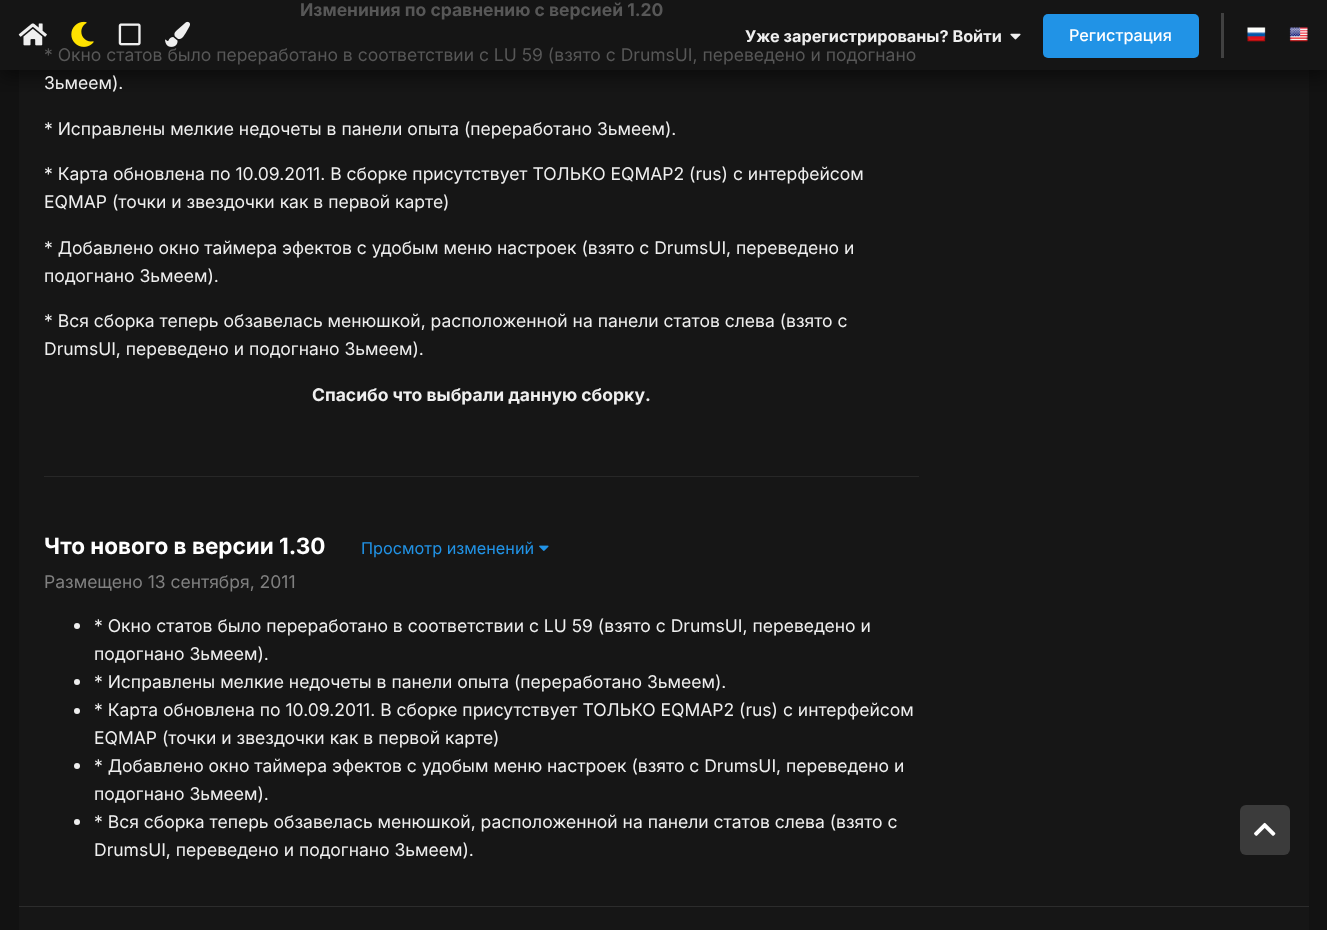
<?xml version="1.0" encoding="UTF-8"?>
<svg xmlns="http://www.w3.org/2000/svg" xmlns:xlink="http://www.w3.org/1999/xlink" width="1327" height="930">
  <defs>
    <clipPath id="clip1"><rect x="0" y="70" width="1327" height="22" /></clipPath>
  </defs>
  <rect width="100%" height="100%" fill="#121212" />
  <rect width="1327" height="70" fill="#151515" />
  <rect x="19" y="70" width="1290" height="860" fill="#161616" />
  <rect x="44" y="476" width="875" height="1" fill="#272727" />
  <image x="539" y="545" width="10" height="6" xlink:href="image1.png" />
  <circle cx="77" cy="626" r="3" fill="#efefef" />
  <circle cx="77" cy="682" r="3" fill="#efefef" />
  <circle cx="77" cy="711" r="3" fill="#efefef" />
  <circle cx="77" cy="766" r="3" fill="#efefef" />
  <circle cx="77" cy="822" r="3" fill="#efefef" />
  <rect x="19" y="906" width="1290" height="1" fill="#2c2c2c" />
  <rect x="1240" y="805" width="50" height="50" rx="6" fill="#3b3b3b" />
  <image x="1254" y="822" width="22" height="14" xlink:href="image2.png" />
  <g clip-path="url(#clip1)">
    <rect y="5" width="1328" height="70" fill="#000000" fill-opacity="0.53" filter="blur(9.5px)" />
  </g>
  <image x="18" y="23" width="29" height="23" xlink:href="image3.png" />
  <image x="71" y="21" width="23" height="26" xlink:href="image4.png" />
  <image x="118" y="23" width="23" height="23" xlink:href="image5.png" />
  <image x="165" y="21" width="25" height="26" xlink:href="image6.png" />
  <image x="1010" y="33" width="11" height="7" xlink:href="image7.png" />
  <rect x="1043" y="14" width="156" height="44" rx="5" fill="#2193e6" />
  <rect x="1221" y="13" width="3" height="45" fill="#414141" />
  <image x="1247" y="27" width="19" height="15" xlink:href="image8.png" />
  <image x="1289" y="27" width="19" height="15" xlink:href="image9.png" />
  <text x="300" y="16" style="font-family: Inter; font-size: 17.5px; font-weight: bold; fill: #575757">Измениния по сравнению с версией 1.20</text>
  <text x="44" y="61" style="font-family: Inter; font-size: 17.5px; fill: #575757">* Окно статов было переработано в соответствии с LU 59 (взято с DrumsUI, переведено и подогнано</text>
  <text x="44" y="89" style="font-family: Inter; font-size: 17.5px; fill: #efefef">Зьмеем).</text>
  <text x="44" y="135" style="font-family: Inter; font-size: 17.5px; fill: #efefef">* Исправлены мелкие недочеты в панели опыта (переработано Зьмеем).</text>
  <text x="44" y="180" style="font-family: Inter; font-size: 17.5px; fill: #efefef">* Карта обновлена по 10.09.2011. В сборке присутствует ТОЛЬКО EQMAP2 (rus) с интерфейсом</text>
  <text x="44" y="208" style="font-family: Inter; font-size: 17.5px; fill: #efefef">EQMAP (точки и звездочки как в первой карте)</text>
  <text x="44" y="254" style="font-family: Inter; font-size: 17.5px; fill: #efefef">* Добавлено окно таймера эфектов с удобым меню настроек (взято с DrumsUI, переведено и</text>
  <text x="44" y="282" style="font-family: Inter; font-size: 17.5px; fill: #efefef">подогнано Зьмеем).</text>
  <text x="44" y="327" style="font-family: Inter; font-size: 17.5px; fill: #efefef">* Вся сборка теперь обзавелась менюшкой, расположенной на панели статов слева (взято с</text>
  <text x="44" y="355" style="font-family: Inter; font-size: 17.5px; fill: #efefef">DrumsUI, переведено и подогнано Зьмеем).</text>
  <text x="312" y="401" style="font-family: Inter; font-size: 17.5px; font-weight: bold; fill: #efefef">Спасибо что выбрали данную сборку.</text>
  <text x="44" y="554" style="font-family: Inter; font-size: 22.5px; font-weight: bold; fill: #ffffff">Что нового в версии 1.30</text>
  <text x="361" y="554" style="font-family: Inter; font-size: 16.25px; fill: #2193e6">Просмотр изменений</text>
  <text x="44" y="588" style="font-family: Inter; font-size: 17.5px; fill: #808080">Размещено 13 сентября, 2011</text>
  <text x="94" y="632" style="font-family: Inter; font-size: 17.5px; fill: #efefef">* Окно статов было переработано в соответствии с LU 59 (взято с DrumsUI, переведено и</text>
  <text x="94" y="660" style="font-family: Inter; font-size: 17.5px; fill: #efefef">подогнано Зьмеем).</text>
  <text x="94" y="688" style="font-family: Inter; font-size: 17.5px; fill: #efefef">* Исправлены мелкие недочеты в панели опыта (переработано Зьмеем).</text>
  <text x="94" y="716" style="font-family: Inter; font-size: 17.5px; fill: #efefef">* Карта обновлена по 10.09.2011. В сборке присутствует ТОЛЬКО EQMAP2 (rus) с интерфейсом</text>
  <text x="94" y="744" style="font-family: Inter; font-size: 17.5px; fill: #efefef">EQMAP (точки и звездочки как в первой карте)</text>
  <text x="94" y="772" style="font-family: Inter; font-size: 17.5px; fill: #efefef">* Добавлено окно таймера эфектов с удобым меню настроек (взято с DrumsUI, переведено и</text>
  <text x="94" y="800" style="font-family: Inter; font-size: 17.5px; fill: #efefef">подогнано Зьмеем).</text>
  <text x="94" y="828" style="font-family: Inter; font-size: 17.5px; fill: #efefef">* Вся сборка теперь обзавелась менюшкой, расположенной на панели статов слева (взято с</text>
  <text x="94" y="856" style="font-family: Inter; font-size: 17.5px; fill: #efefef">DrumsUI, переведено и подогнано Зьмеем).</text>
  <text x="745" y="42" style="font-family: Inter; font-size: 16.25px; font-weight: bold; fill: #efefef">Уже зарегистрированы? Войти</text>
  <text x="1069" y="41" style="font-family: Inter; font-size: 16.25px; font-weight: 500; fill: #ffffff">Регистрация</text>
</svg>
